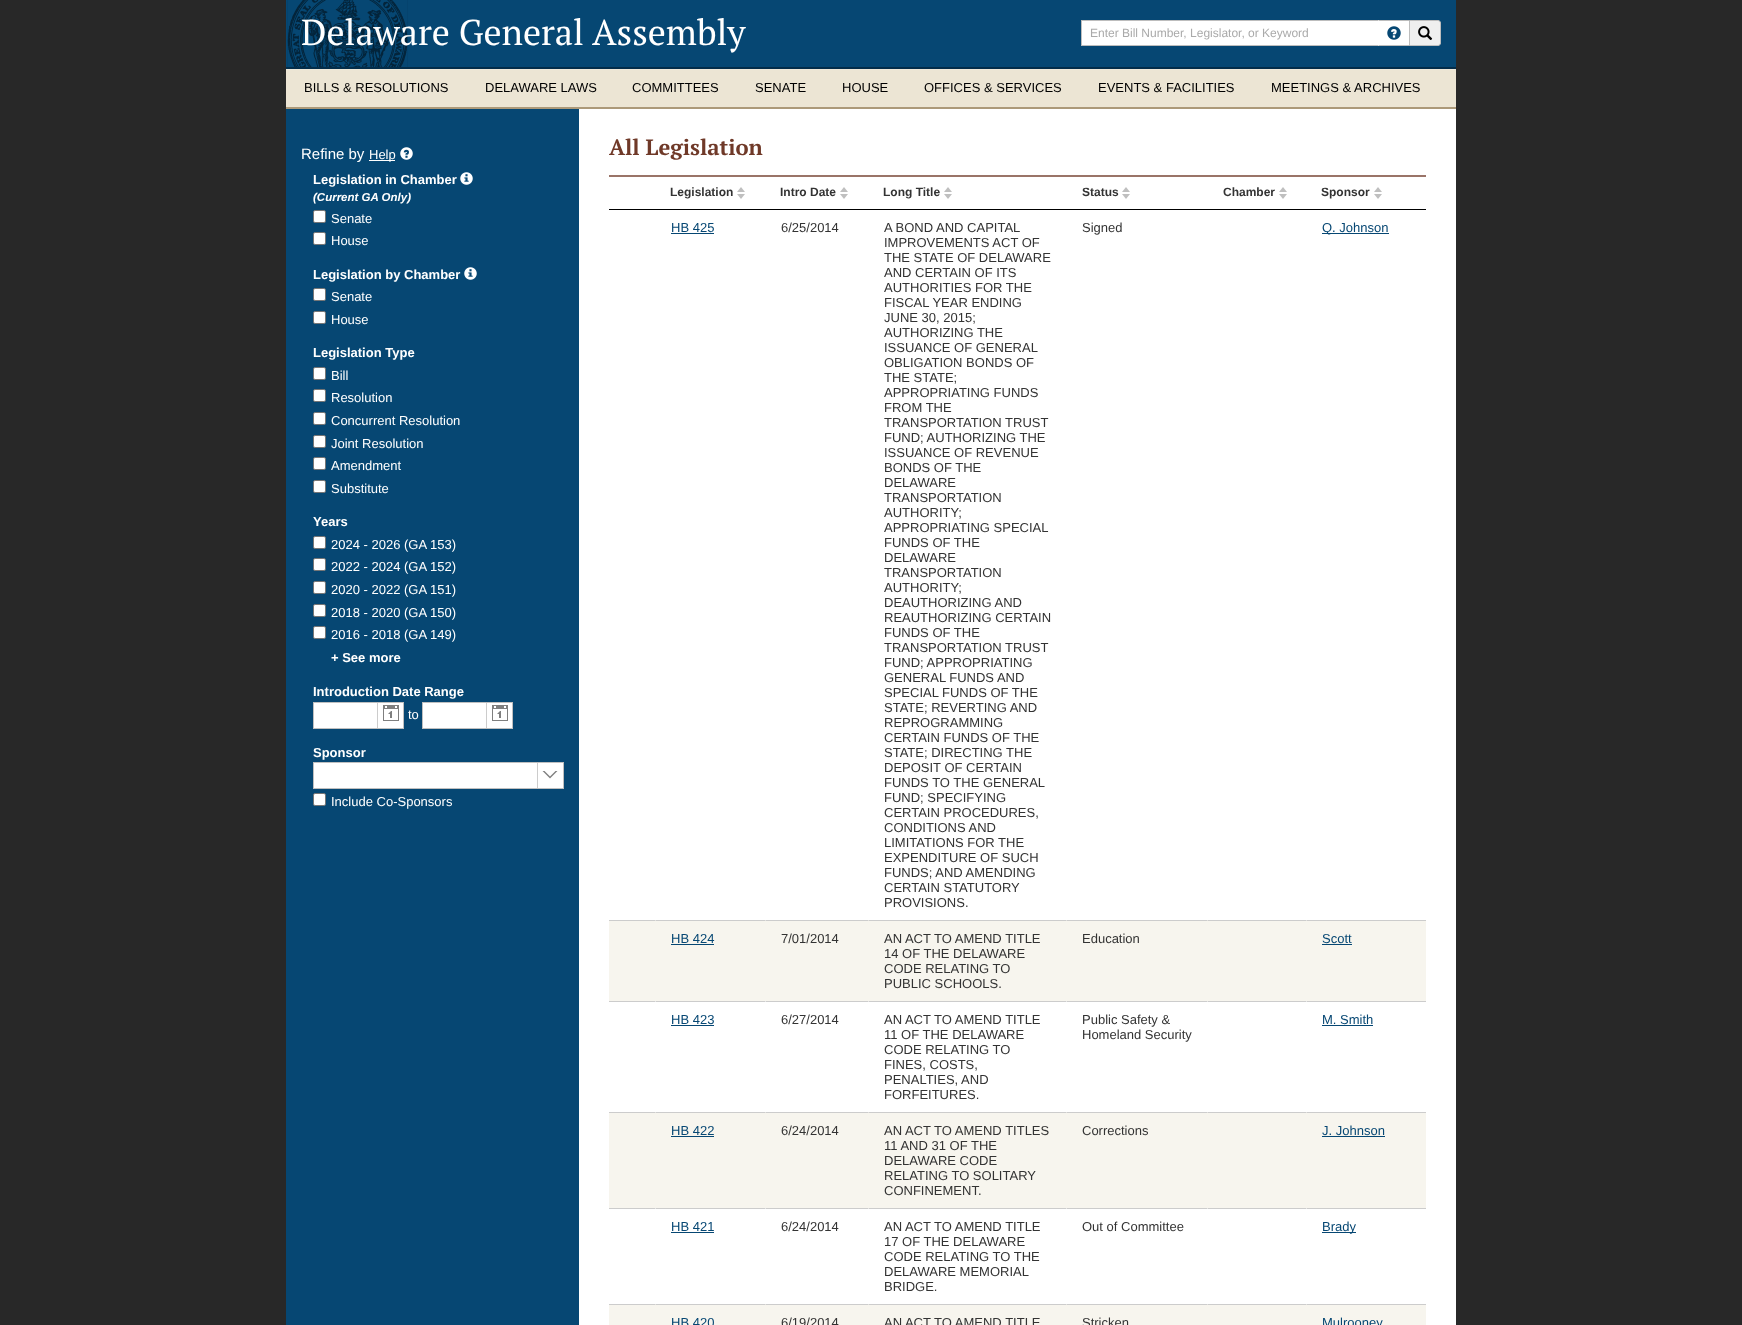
<?xml version="1.0" encoding="UTF-8"?>
<svg xmlns="http://www.w3.org/2000/svg" xmlns:xlink="http://www.w3.org/1999/xlink" width="1742" height="1325">
  <rect width="100%" height="100%" fill="#282828" />
  <rect x="286" y="107" width="1170" height="2" fill="#ac9979" />
  <rect x="286" width="1170" height="67" fill="#064773" />
  <image x="287" y="0" width="121" height="67" xlink:href="image1.png" />
  <rect x="286" y="67" width="1170" height="2" fill="#032d4a" />
  <rect x="1081.5" y="20.5" width="297" height="25" fill="#ffffff" stroke="#bdbdbd" />
  <rect x="1378" y="20" width="31" height="26" fill="#ffffff" />
  <path d="M 1378 20 h 32 l -1 1 h -30 z m 32 26 h -32 l 1 -1 h 30 z" fill="#bdbdbd" />
  <image x="1387" y="26" width="14" height="14" xlink:href="image2.png" />
  <path d="M 1409.5 20.5 h 28.5 c 1.5 0 2.5 1 2.5 2.5 v 20 c 0 1.5 -1 2.5 -2.5 2.5 h -28.5 z" fill="#efefef" stroke="#bdbdbd" />
  <image x="1418" y="26" width="15" height="14" xlink:href="image3.png" />
  <rect x="286" y="70" width="1170" height="37" fill="#ece5d4" />
  <rect x="286" y="69" width="1170" height="1" fill="#efe9da" />
  <rect x="286" y="109" width="293" height="1216" fill="#064773" />
  <rect x="369" y="160" width="26" height="1" fill="#ffffff" />
  <image x="400" y="147" width="13" height="13" xlink:href="image4.png" />
  <image x="460" y="172" width="13" height="13" xlink:href="image5.png" />
  <rect x="313.5" y="210.5" width="12" height="12" rx="1.5" fill="#ffffff" stroke="#767676" />
  <rect x="313.5" y="232.5" width="12" height="12" rx="1.5" fill="#ffffff" stroke="#767676" />
  <image x="464" y="267" width="13" height="13" xlink:href="image5.png" />
  <rect x="313.5" y="288.5" width="12" height="12" rx="1.5" fill="#ffffff" stroke="#767676" />
  <rect x="313.5" y="311.5" width="12" height="12" rx="1.5" fill="#ffffff" stroke="#767676" />
  <rect x="313.5" y="367.5" width="12" height="12" rx="1.5" fill="#ffffff" stroke="#767676" />
  <rect x="313.5" y="389.5" width="12" height="12" rx="1.5" fill="#ffffff" stroke="#767676" />
  <rect x="313.5" y="412.5" width="12" height="12" rx="1.5" fill="#ffffff" stroke="#767676" />
  <rect x="313.5" y="435.5" width="12" height="12" rx="1.5" fill="#ffffff" stroke="#767676" />
  <rect x="313.5" y="457.5" width="12" height="12" rx="1.5" fill="#ffffff" stroke="#767676" />
  <rect x="313.5" y="480.5" width="12" height="12" rx="1.5" fill="#ffffff" stroke="#767676" />
  <rect x="313.5" y="536.5" width="12" height="12" rx="1.5" fill="#ffffff" stroke="#767676" />
  <rect x="313.5" y="558.5" width="12" height="12" rx="1.5" fill="#ffffff" stroke="#767676" />
  <rect x="313.5" y="581.5" width="12" height="12" rx="1.5" fill="#ffffff" stroke="#767676" />
  <rect x="313.5" y="604.5" width="12" height="12" rx="1.5" fill="#ffffff" stroke="#767676" />
  <rect x="313.5" y="626.5" width="12" height="12" rx="1.5" fill="#ffffff" stroke="#767676" />
  <rect x="313.5" y="702.5" width="90" height="26" fill="#ffffff" stroke="#bfbfbf" />
  <rect x="377" y="703" width="1" height="25" fill="#cccccc" />
  <image x="383" y="705" width="16" height="16" xlink:href="image6.png" />
  <rect x="422.5" y="702.5" width="90" height="26" fill="#ffffff" stroke="#bfbfbf" />
  <rect x="486" y="703" width="1" height="25" fill="#cccccc" />
  <image x="492" y="705" width="16" height="16" xlink:href="image6.png" />
  <rect x="313.5" y="762.5" width="250" height="26" fill="#ffffff" stroke="#bfbfbf" />
  <rect x="537" y="763" width="1" height="25" fill="#cccccc" />
  <image x="542" y="771" width="16" height="8" xlink:href="image7.png" />
  <rect x="313.5" y="793.5" width="12" height="12" rx="1.5" fill="#ffffff" stroke="#767676" />
  <rect x="579" y="109" width="877" height="1216" fill="#ffffff" />
  <rect x="609" y="175" width="817" height="2" fill="#9a7468" />
  <image x="737" y="187" width="8" height="12" xlink:href="image8.png" />
  <image x="840" y="187" width="8" height="12" xlink:href="image8.png" />
  <image x="944" y="187" width="8" height="12" xlink:href="image8.png" />
  <image x="1122" y="187" width="8" height="12" xlink:href="image8.png" />
  <image x="1279" y="187" width="8" height="12" xlink:href="image8.png" />
  <image x="1374" y="187" width="8" height="12" xlink:href="image8.png" />
  <rect x="609" y="209" width="817" height="1" fill="#000000" />
  <rect x="671" y="233" width="43" height="1" fill="#064773" />
  <rect x="1322" y="233" width="67" height="1" fill="#064773" />
  <rect x="609" y="920" width="817" height="81" fill="#f7f5ee" />
  <rect x="609" y="920" width="46" height="1" fill="#cccccc" />
  <path d="M 1207 920 h 99 v 1 h -98 z" fill="#cccccc" />
  <path d="M 655 920 h 110 v 1 h -109 z" fill="#cccccc" />
  <rect x="671" y="944" width="43" height="1" fill="#064773" />
  <path d="M 765 920 h 103 v 1 h -102 z" fill="#cccccc" />
  <path d="M 868 920 h 198 v 1 h -197 z" fill="#cccccc" />
  <path d="M 1066 920 h 141 v 1 h -140 z" fill="#cccccc" />
  <path d="M 1306 920 h 120 v 1 h -119 z" fill="#cccccc" />
  <rect x="1322" y="944" width="30" height="1" fill="#064773" />
  <rect x="609" y="1001" width="46" height="1" fill="#cccccc" />
  <path d="M 1207 1001 h 99 v 1 h -98 z" fill="#cccccc" />
  <path d="M 655 1001 h 110 v 1 h -109 z" fill="#cccccc" />
  <rect x="671" y="1025" width="43" height="1" fill="#064773" />
  <path d="M 765 1001 h 103 v 1 h -102 z" fill="#cccccc" />
  <path d="M 868 1001 h 198 v 1 h -197 z" fill="#cccccc" />
  <path d="M 1066 1001 h 141 v 1 h -140 z" fill="#cccccc" />
  <path d="M 1306 1001 h 120 v 1 h -119 z" fill="#cccccc" />
  <rect x="1322" y="1025" width="51" height="1" fill="#064773" />
  <rect x="609" y="1112" width="817" height="96" fill="#f7f5ee" />
  <rect x="609" y="1112" width="46" height="1" fill="#cccccc" />
  <path d="M 1207 1112 h 99 v 1 h -98 z" fill="#cccccc" />
  <path d="M 655 1112 h 110 v 1 h -109 z" fill="#cccccc" />
  <rect x="671" y="1136" width="43" height="1" fill="#064773" />
  <path d="M 765 1112 h 103 v 1 h -102 z" fill="#cccccc" />
  <path d="M 868 1112 h 198 v 1 h -197 z" fill="#cccccc" />
  <path d="M 1066 1112 h 141 v 1 h -140 z" fill="#cccccc" />
  <path d="M 1306 1112 h 120 v 1 h -119 z" fill="#cccccc" />
  <rect x="1322" y="1136" width="63" height="1" fill="#064773" />
  <rect x="609" y="1208" width="46" height="1" fill="#cccccc" />
  <path d="M 1207 1208 h 99 v 1 h -98 z" fill="#cccccc" />
  <path d="M 655 1208 h 110 v 1 h -109 z" fill="#cccccc" />
  <rect x="671" y="1232" width="43" height="1" fill="#064773" />
  <path d="M 765 1208 h 103 v 1 h -102 z" fill="#cccccc" />
  <path d="M 868 1208 h 198 v 1 h -197 z" fill="#cccccc" />
  <path d="M 1066 1208 h 141 v 1 h -140 z" fill="#cccccc" />
  <path d="M 1306 1208 h 120 v 1 h -119 z" fill="#cccccc" />
  <rect x="1322" y="1232" width="34" height="1" fill="#064773" />
  <rect x="609" y="1304" width="817" height="21" fill="#f7f5ee" />
  <rect x="609" y="1304" width="46" height="1" fill="#cccccc" />
  <path d="M 1207 1304 h 99 v 1 h -98 z" fill="#cccccc" />
  <path d="M 655 1304 h 110 v 1 h -109 z" fill="#cccccc" />
  <path d="M 765 1304 h 103 v 1 h -102 z" fill="#cccccc" />
  <path d="M 868 1304 h 198 v 1 h -197 z" fill="#cccccc" />
  <path d="M 1066 1304 h 141 v 1 h -140 z" fill="#cccccc" />
  <path d="M 1306 1304 h 120 v 1 h -119 z" fill="#cccccc" />
  <text x="301" y="45" style="font-family: PT Serif; font-size: 36px; fill: #ffffff">Delaware General Assembly</text>
  <text x="1090" y="37" style="font-family: Liberation Sans; font-size: 12px; fill: #aaaaaa">Enter Bill Number, Legislator, or Keyword</text>
  <text x="304" y="92" style="font-family: Liberation Sans; font-size: 13px; fill: #000000">BILLS &amp; RESOLUTIONS</text>
  <text x="485" y="92" style="font-family: Liberation Sans; font-size: 13px; fill: #000000">DELAWARE LAWS</text>
  <text x="632" y="92" style="font-family: Liberation Sans; font-size: 13px; fill: #000000">COMMITTEES</text>
  <text x="755" y="92" style="font-family: Liberation Sans; font-size: 13px; fill: #000000">SENATE</text>
  <text x="842" y="92" style="font-family: Liberation Sans; font-size: 13px; fill: #000000">HOUSE</text>
  <text x="924" y="92" style="font-family: Liberation Sans; font-size: 13px; fill: #000000">OFFICES &amp; SERVICES</text>
  <text x="1098" y="92" style="font-family: Liberation Sans; font-size: 13px; fill: #000000">EVENTS &amp; FACILITIES</text>
  <text x="1271" y="92" style="font-family: Liberation Sans; font-size: 13px; fill: #000000">MEETINGS &amp; ARCHIVES</text>
  <text x="301" y="159" style="font-family: Liberation Sans; font-size: 15px; fill: #ffffff">Refine by</text>
  <text x="369" y="159" style="font-family: Liberation Sans; font-size: 13px; fill: #ffffff">Help</text>
  <text x="313" y="184" style="font-family: Liberation Sans; font-size: 13px; font-weight: bold; fill: #ffffff">Legislation in Chamber</text>
  <text x="313" y="201" style="font-family: Liberation Sans; font-size: 11.5px; font-weight: bold; font-style: italic; fill: #ffffff">(Current GA Only)</text>
  <text x="331" y="223" style="font-family: Liberation Sans; font-size: 13px; fill: #ffffff">Senate</text>
  <text x="331" y="245" style="font-family: Liberation Sans; font-size: 13px; fill: #ffffff">House</text>
  <text x="313" y="279" style="font-family: Liberation Sans; font-size: 13px; font-weight: bold; fill: #ffffff">Legislation by Chamber</text>
  <text x="331" y="301" style="font-family: Liberation Sans; font-size: 13px; fill: #ffffff">Senate</text>
  <text x="331" y="324" style="font-family: Liberation Sans; font-size: 13px; fill: #ffffff">House</text>
  <text x="313" y="357" style="font-family: Liberation Sans; font-size: 13px; font-weight: bold; fill: #ffffff">Legislation Type</text>
  <text x="331" y="380" style="font-family: Liberation Sans; font-size: 13px; fill: #ffffff">Bill</text>
  <text x="331" y="402" style="font-family: Liberation Sans; font-size: 13px; fill: #ffffff">Resolution</text>
  <text x="331" y="425" style="font-family: Liberation Sans; font-size: 13px; fill: #ffffff">Concurrent Resolution</text>
  <text x="331" y="448" style="font-family: Liberation Sans; font-size: 13px; fill: #ffffff">Joint Resolution</text>
  <text x="331" y="470" style="font-family: Liberation Sans; font-size: 13px; fill: #ffffff">Amendment</text>
  <text x="331" y="493" style="font-family: Liberation Sans; font-size: 13px; fill: #ffffff">Substitute</text>
  <text x="313" y="526" style="font-family: Liberation Sans; font-size: 13px; font-weight: bold; fill: #ffffff">Years</text>
  <text x="331" y="549" style="font-family: Liberation Sans; font-size: 13px; fill: #ffffff">2024 - 2026 (GA 153)</text>
  <text x="331" y="571" style="font-family: Liberation Sans; font-size: 13px; fill: #ffffff">2022 - 2024 (GA 152)</text>
  <text x="331" y="594" style="font-family: Liberation Sans; font-size: 13px; fill: #ffffff">2020 - 2022 (GA 151)</text>
  <text x="331" y="617" style="font-family: Liberation Sans; font-size: 13px; fill: #ffffff">2018 - 2020 (GA 150)</text>
  <text x="331" y="639" style="font-family: Liberation Sans; font-size: 13px; fill: #ffffff">2016 - 2018 (GA 149)</text>
  <text x="331" y="662" style="font-family: Liberation Sans; font-size: 13px; font-weight: bold; fill: #ffffff">+ See more</text>
  <text x="313" y="696" style="font-family: Liberation Sans; font-size: 13px; font-weight: bold; fill: #ffffff">Introduction Date Range</text>
  <text x="408" y="719" style="font-family: Liberation Sans; font-size: 13px; fill: #ffffff">to</text>
  <text x="313" y="757" style="font-family: Liberation Sans; font-size: 13px; font-weight: bold; fill: #ffffff">Sponsor</text>
  <text x="331" y="806" style="font-family: Liberation Sans; font-size: 13px; fill: #ffffff">Include Co-Sponsors</text>
  <text x="609" y="155" style="font-family: PT Serif; font-size: 22px; font-weight: bold; fill: #6f3928">All Legislation</text>
  <text x="670" y="196" style="font-family: Liberation Sans; font-size: 12px; font-weight: bold; fill: #333333">Legislation</text>
  <text x="780" y="196" style="font-family: Liberation Sans; font-size: 12px; font-weight: bold; fill: #333333">Intro Date</text>
  <text x="883" y="196" style="font-family: Liberation Sans; font-size: 12px; font-weight: bold; fill: #333333">Long Title</text>
  <text x="1082" y="196" style="font-family: Liberation Sans; font-size: 12px; font-weight: bold; fill: #333333">Status</text>
  <text x="1223" y="196" style="font-family: Liberation Sans; font-size: 12px; font-weight: bold; fill: #333333">Chamber</text>
  <text x="1321" y="196" style="font-family: Liberation Sans; font-size: 12px; font-weight: bold; fill: #333333">Sponsor</text>
  <text x="671" y="232" style="font-family: Liberation Sans; font-size: 13px; fill: #064773">HB 425</text>
  <text x="781" y="232" style="font-family: Liberation Sans; font-size: 13px; fill: #333333">6/25/2014</text>
  <text x="884" y="232" style="font-family: Liberation Sans; font-size: 13px; fill: #333333">A BOND AND CAPITAL</text>
  <text x="884" y="247" style="font-family: Liberation Sans; font-size: 13px; fill: #333333">IMPROVEMENTS ACT OF</text>
  <text x="884" y="262" style="font-family: Liberation Sans; font-size: 13px; fill: #333333">THE STATE OF DELAWARE</text>
  <text x="884" y="277" style="font-family: Liberation Sans; font-size: 13px; fill: #333333">AND CERTAIN OF ITS</text>
  <text x="884" y="292" style="font-family: Liberation Sans; font-size: 13px; fill: #333333">AUTHORITIES FOR THE</text>
  <text x="884" y="307" style="font-family: Liberation Sans; font-size: 13px; fill: #333333">FISCAL YEAR ENDING</text>
  <text x="884" y="322" style="font-family: Liberation Sans; font-size: 13px; fill: #333333">JUNE 30, 2015;</text>
  <text x="884" y="337" style="font-family: Liberation Sans; font-size: 13px; fill: #333333">AUTHORIZING THE</text>
  <text x="884" y="352" style="font-family: Liberation Sans; font-size: 13px; fill: #333333">ISSUANCE OF GENERAL</text>
  <text x="884" y="367" style="font-family: Liberation Sans; font-size: 13px; fill: #333333">OBLIGATION BONDS OF</text>
  <text x="884" y="382" style="font-family: Liberation Sans; font-size: 13px; fill: #333333">THE STATE;</text>
  <text x="884" y="397" style="font-family: Liberation Sans; font-size: 13px; fill: #333333">APPROPRIATING FUNDS</text>
  <text x="884" y="412" style="font-family: Liberation Sans; font-size: 13px; fill: #333333">FROM THE</text>
  <text x="884" y="427" style="font-family: Liberation Sans; font-size: 13px; fill: #333333">TRANSPORTATION TRUST</text>
  <text x="884" y="442" style="font-family: Liberation Sans; font-size: 13px; fill: #333333">FUND; AUTHORIZING THE</text>
  <text x="884" y="457" style="font-family: Liberation Sans; font-size: 13px; fill: #333333">ISSUANCE OF REVENUE</text>
  <text x="884" y="472" style="font-family: Liberation Sans; font-size: 13px; fill: #333333">BONDS OF THE</text>
  <text x="884" y="487" style="font-family: Liberation Sans; font-size: 13px; fill: #333333">DELAWARE</text>
  <text x="884" y="502" style="font-family: Liberation Sans; font-size: 13px; fill: #333333">TRANSPORTATION</text>
  <text x="884" y="517" style="font-family: Liberation Sans; font-size: 13px; fill: #333333">AUTHORITY;</text>
  <text x="884" y="532" style="font-family: Liberation Sans; font-size: 13px; fill: #333333">APPROPRIATING SPECIAL</text>
  <text x="884" y="547" style="font-family: Liberation Sans; font-size: 13px; fill: #333333">FUNDS OF THE</text>
  <text x="884" y="562" style="font-family: Liberation Sans; font-size: 13px; fill: #333333">DELAWARE</text>
  <text x="884" y="577" style="font-family: Liberation Sans; font-size: 13px; fill: #333333">TRANSPORTATION</text>
  <text x="884" y="592" style="font-family: Liberation Sans; font-size: 13px; fill: #333333">AUTHORITY;</text>
  <text x="884" y="607" style="font-family: Liberation Sans; font-size: 13px; fill: #333333">DEAUTHORIZING AND</text>
  <text x="884" y="622" style="font-family: Liberation Sans; font-size: 13px; fill: #333333">REAUTHORIZING CERTAIN</text>
  <text x="884" y="637" style="font-family: Liberation Sans; font-size: 13px; fill: #333333">FUNDS OF THE</text>
  <text x="884" y="652" style="font-family: Liberation Sans; font-size: 13px; fill: #333333">TRANSPORTATION TRUST</text>
  <text x="884" y="667" style="font-family: Liberation Sans; font-size: 13px; fill: #333333">FUND; APPROPRIATING</text>
  <text x="884" y="682" style="font-family: Liberation Sans; font-size: 13px; fill: #333333">GENERAL FUNDS AND</text>
  <text x="884" y="697" style="font-family: Liberation Sans; font-size: 13px; fill: #333333">SPECIAL FUNDS OF THE</text>
  <text x="884" y="712" style="font-family: Liberation Sans; font-size: 13px; fill: #333333">STATE; REVERTING AND</text>
  <text x="884" y="727" style="font-family: Liberation Sans; font-size: 13px; fill: #333333">REPROGRAMMING</text>
  <text x="884" y="742" style="font-family: Liberation Sans; font-size: 13px; fill: #333333">CERTAIN FUNDS OF THE</text>
  <text x="884" y="757" style="font-family: Liberation Sans; font-size: 13px; fill: #333333">STATE; DIRECTING THE</text>
  <text x="884" y="772" style="font-family: Liberation Sans; font-size: 13px; fill: #333333">DEPOSIT OF CERTAIN</text>
  <text x="884" y="787" style="font-family: Liberation Sans; font-size: 13px; fill: #333333">FUNDS TO THE GENERAL</text>
  <text x="884" y="802" style="font-family: Liberation Sans; font-size: 13px; fill: #333333">FUND; SPECIFYING</text>
  <text x="884" y="817" style="font-family: Liberation Sans; font-size: 13px; fill: #333333">CERTAIN PROCEDURES,</text>
  <text x="884" y="832" style="font-family: Liberation Sans; font-size: 13px; fill: #333333">CONDITIONS AND</text>
  <text x="884" y="847" style="font-family: Liberation Sans; font-size: 13px; fill: #333333">LIMITATIONS FOR THE</text>
  <text x="884" y="862" style="font-family: Liberation Sans; font-size: 13px; fill: #333333">EXPENDITURE OF SUCH</text>
  <text x="884" y="877" style="font-family: Liberation Sans; font-size: 13px; fill: #333333">FUNDS; AND AMENDING</text>
  <text x="884" y="892" style="font-family: Liberation Sans; font-size: 13px; fill: #333333">CERTAIN STATUTORY</text>
  <text x="884" y="907" style="font-family: Liberation Sans; font-size: 13px; fill: #333333">PROVISIONS.</text>
  <text x="1082" y="232" style="font-family: Liberation Sans; font-size: 13px; fill: #333333">Signed</text>
  <text x="1322" y="232" style="font-family: Liberation Sans; font-size: 13px; fill: #064773">Q. Johnson</text>
  <text x="671" y="943" style="font-family: Liberation Sans; font-size: 13px; fill: #064773">HB 424</text>
  <text x="781" y="943" style="font-family: Liberation Sans; font-size: 13px; fill: #333333">7/01/2014</text>
  <text x="884" y="943" style="font-family: Liberation Sans; font-size: 13px; fill: #333333">AN ACT TO AMEND TITLE</text>
  <text x="884" y="958" style="font-family: Liberation Sans; font-size: 13px; fill: #333333">14 OF THE DELAWARE</text>
  <text x="884" y="973" style="font-family: Liberation Sans; font-size: 13px; fill: #333333">CODE RELATING TO</text>
  <text x="884" y="988" style="font-family: Liberation Sans; font-size: 13px; fill: #333333">PUBLIC SCHOOLS.</text>
  <text x="1082" y="943" style="font-family: Liberation Sans; font-size: 13px; fill: #333333">Education</text>
  <text x="1322" y="943" style="font-family: Liberation Sans; font-size: 13px; fill: #064773">Scott</text>
  <text x="671" y="1024" style="font-family: Liberation Sans; font-size: 13px; fill: #064773">HB 423</text>
  <text x="781" y="1024" style="font-family: Liberation Sans; font-size: 13px; fill: #333333">6/27/2014</text>
  <text x="884" y="1024" style="font-family: Liberation Sans; font-size: 13px; fill: #333333">AN ACT TO AMEND TITLE</text>
  <text x="884" y="1039" style="font-family: Liberation Sans; font-size: 13px; fill: #333333">11 OF THE DELAWARE</text>
  <text x="884" y="1054" style="font-family: Liberation Sans; font-size: 13px; fill: #333333">CODE RELATING TO</text>
  <text x="884" y="1069" style="font-family: Liberation Sans; font-size: 13px; fill: #333333">FINES, COSTS,</text>
  <text x="884" y="1084" style="font-family: Liberation Sans; font-size: 13px; fill: #333333">PENALTIES, AND</text>
  <text x="884" y="1099" style="font-family: Liberation Sans; font-size: 13px; fill: #333333">FORFEITURES.</text>
  <text x="1082" y="1024" style="font-family: Liberation Sans; font-size: 13px; fill: #333333">Public Safety &amp;</text>
  <text x="1082" y="1039" style="font-family: Liberation Sans; font-size: 13px; fill: #333333">Homeland Security</text>
  <text x="1322" y="1024" style="font-family: Liberation Sans; font-size: 13px; fill: #064773">M. Smith</text>
  <text x="671" y="1135" style="font-family: Liberation Sans; font-size: 13px; fill: #064773">HB 422</text>
  <text x="781" y="1135" style="font-family: Liberation Sans; font-size: 13px; fill: #333333">6/24/2014</text>
  <text x="884" y="1135" style="font-family: Liberation Sans; font-size: 13px; fill: #333333">AN ACT TO AMEND TITLES</text>
  <text x="884" y="1150" style="font-family: Liberation Sans; font-size: 13px; fill: #333333">11 AND 31 OF THE</text>
  <text x="884" y="1165" style="font-family: Liberation Sans; font-size: 13px; fill: #333333">DELAWARE CODE</text>
  <text x="884" y="1180" style="font-family: Liberation Sans; font-size: 13px; fill: #333333">RELATING TO SOLITARY</text>
  <text x="884" y="1195" style="font-family: Liberation Sans; font-size: 13px; fill: #333333">CONFINEMENT.</text>
  <text x="1082" y="1135" style="font-family: Liberation Sans; font-size: 13px; fill: #333333">Corrections</text>
  <text x="1322" y="1135" style="font-family: Liberation Sans; font-size: 13px; fill: #064773">J. Johnson</text>
  <text x="671" y="1231" style="font-family: Liberation Sans; font-size: 13px; fill: #064773">HB 421</text>
  <text x="781" y="1231" style="font-family: Liberation Sans; font-size: 13px; fill: #333333">6/24/2014</text>
  <text x="884" y="1231" style="font-family: Liberation Sans; font-size: 13px; fill: #333333">AN ACT TO AMEND TITLE</text>
  <text x="884" y="1246" style="font-family: Liberation Sans; font-size: 13px; fill: #333333">17 OF THE DELAWARE</text>
  <text x="884" y="1261" style="font-family: Liberation Sans; font-size: 13px; fill: #333333">CODE RELATING TO THE</text>
  <text x="884" y="1276" style="font-family: Liberation Sans; font-size: 13px; fill: #333333">DELAWARE MEMORIAL</text>
  <text x="884" y="1291" style="font-family: Liberation Sans; font-size: 13px; fill: #333333">BRIDGE.</text>
  <text x="1082" y="1231" style="font-family: Liberation Sans; font-size: 13px; fill: #333333">Out of Committee</text>
  <text x="1322" y="1231" style="font-family: Liberation Sans; font-size: 13px; fill: #064773">Brady</text>
  <text x="671" y="1327" style="font-family: Liberation Sans; font-size: 13px; fill: #064773">HB 420</text>
  <text x="781" y="1327" style="font-family: Liberation Sans; font-size: 13px; fill: #333333">6/19/2014</text>
  <text x="884" y="1327" style="font-family: Liberation Sans; font-size: 13px; fill: #333333">AN ACT TO AMEND TITLE</text>
  <text x="1082" y="1327" style="font-family: Liberation Sans; font-size: 13px; fill: #333333">Stricken</text>
  <text x="1322" y="1327" style="font-family: Liberation Sans; font-size: 13px; fill: #064773">Mulrooney</text>
</svg>
